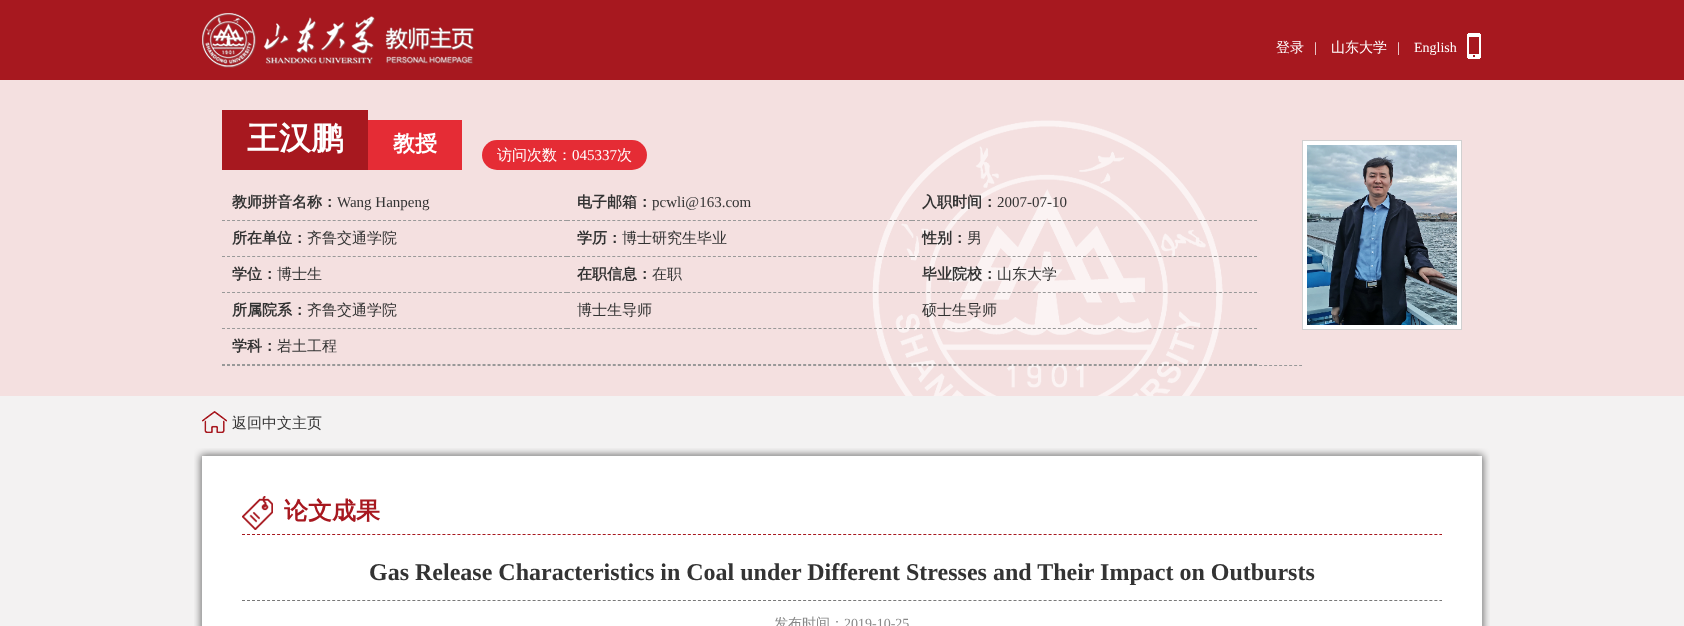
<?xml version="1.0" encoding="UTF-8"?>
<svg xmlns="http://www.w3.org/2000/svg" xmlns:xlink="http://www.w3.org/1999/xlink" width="1684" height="626">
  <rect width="100%" height="100%" fill="#a7181f" />
  <image x="202" y="13" width="273" height="55" xlink:href="image1.png" />
  <image x="1467" y="33" width="14" height="26" xlink:href="image2.png" />
  <rect y="80" width="1684" height="316" fill="#f4e0e0" />
  <image x="872" y="120" width="351" height="276" xlink:href="image3.png" />
  <rect x="222" y="110" width="146" height="60" fill="#a7181f" />
  <rect x="368" y="120" width="94" height="50" fill="#e52c35" />
  <rect x="482" y="140" width="165" height="30" rx="15" fill="#e52c35" />
  <path d="M 222 220.5 h 345" fill="none" stroke="#999999" stroke-dasharray="3 2.03" />
  <path d="M 567 220.5 h 345" fill="none" stroke="#999999" stroke-dasharray="3 2.03" />
  <path d="M 912 220.5 h 345" fill="none" stroke="#999999" stroke-dasharray="3 2.03" />
  <path d="M 222 256.5 h 345" fill="none" stroke="#999999" stroke-dasharray="3 2.03" />
  <path d="M 567 256.5 h 345" fill="none" stroke="#999999" stroke-dasharray="3 2.03" />
  <path d="M 912 256.5 h 345" fill="none" stroke="#999999" stroke-dasharray="3 2.03" />
  <path d="M 222 292.5 h 345" fill="none" stroke="#999999" stroke-dasharray="3 2.03" />
  <path d="M 567 292.5 h 345" fill="none" stroke="#999999" stroke-dasharray="3 2.03" />
  <path d="M 912 292.5 h 345" fill="none" stroke="#999999" stroke-dasharray="3 2.03" />
  <path d="M 222 328.5 h 345" fill="none" stroke="#999999" stroke-dasharray="3 2.03" />
  <path d="M 567 328.5 h 345" fill="none" stroke="#999999" stroke-dasharray="3 2.03" />
  <path d="M 912 328.5 h 345" fill="none" stroke="#999999" stroke-dasharray="3 2.03" />
  <path d="M 222 364.5 h 1035" fill="none" stroke="#999999" stroke-dasharray="3 2.01" />
  <path d="M 222 365.5 h 1080" fill="none" stroke="#999999" stroke-dasharray="3 2.01" />
  <rect x="1302.5" y="140.5" width="159" height="189" fill="#ffffff" stroke="#d0d0d0" />
  <image x="1307" y="145" width="150" height="180" xlink:href="image4.png" />
  <rect y="396" width="1684" height="230" fill="#f3f2f2" />
  <image x="202" y="411" width="25" height="22" xlink:href="image5.png" />
  <image x="194" y="448" width="1296" height="28" xlink:href="image6.png" />
  <image x="194" y="476" width="1296" height="150" xlink:href="image7.png" />
  <image x="242" y="496" width="31" height="34" xlink:href="image8.png" />
  <path d="M 242 534.5 h 1200" fill="none" stroke="#a7181f" stroke-dasharray="3 2.01" />
  <path d="M 242 600.5 h 1200" fill="none" stroke="#787878" stroke-dasharray="3 2.01" />
  <text x="1276" y="52" style="font-family: WenQuanYi Zen Hei; font-size: 14px; font-weight: 500; fill: #ffffff">登录</text>
  <text x="1314" y="52" style="font-family: Liberation Serif; font-size: 14px; fill: #ffffff">|</text>
  <text x="1331" y="52" style="font-family: WenQuanYi Zen Hei; font-size: 14px; font-weight: 500; fill: #ffffff">山东大学</text>
  <text x="1397" y="52" style="font-family: Liberation Serif; font-size: 14px; fill: #ffffff">|</text>
  <text x="1414" y="52" style="font-family: Liberation Serif; font-size: 14px; fill: #ffffff">English</text>
  <text x="247" y="149" style="font-family: WenQuanYi Zen Hei; font-size: 32px; font-weight: bold; fill: #ffffff">王汉鹏</text>
  <text x="393" y="151" style="font-family: WenQuanYi Zen Hei; font-size: 22px; font-weight: bold; fill: #ffffff">教授</text>
  <text x="497" y="160" style="font-family: WenQuanYi Zen Hei; font-size: 15px; font-weight: 500; fill: #ffffff">访问次数：</text>
  <text x="572" y="160" style="font-family: Liberation Serif; font-size: 15px; fill: #ffffff">045337</text>
  <text x="617" y="160" style="font-family: WenQuanYi Zen Hei; font-size: 15px; font-weight: 500; fill: #ffffff">次</text>
  <text x="232" y="207" style="font-family: WenQuanYi Zen Hei; font-size: 15px; font-weight: bold; fill: #333333">教师拼音名称：</text>
  <text x="337" y="207" style="font-family: Liberation Serif; font-size: 15px; fill: #333333">Wang Hanpeng</text>
  <text x="577" y="207" style="font-family: WenQuanYi Zen Hei; font-size: 15px; font-weight: bold; fill: #333333">电子邮箱：</text>
  <text x="652" y="207" style="font-family: Liberation Serif; font-size: 15px; fill: #333333">pcwli@163.com</text>
  <text x="922" y="207" style="font-family: WenQuanYi Zen Hei; font-size: 15px; font-weight: bold; fill: #333333">入职时间：</text>
  <text x="997" y="207" style="font-family: Liberation Serif; font-size: 15px; fill: #333333">2007-07-10</text>
  <text x="232" y="243" style="font-family: WenQuanYi Zen Hei; font-size: 15px; font-weight: bold; fill: #333333">所在单位：</text>
  <text x="307" y="243" style="font-family: WenQuanYi Zen Hei; font-size: 15px; font-weight: 500; fill: #333333">齐鲁交通学院</text>
  <text x="577" y="243" style="font-family: WenQuanYi Zen Hei; font-size: 15px; font-weight: bold; fill: #333333">学历：</text>
  <text x="622" y="243" style="font-family: WenQuanYi Zen Hei; font-size: 15px; font-weight: 500; fill: #333333">博士研究生毕业</text>
  <text x="922" y="243" style="font-family: WenQuanYi Zen Hei; font-size: 15px; font-weight: bold; fill: #333333">性别：</text>
  <text x="967" y="243" style="font-family: WenQuanYi Zen Hei; font-size: 15px; font-weight: 500; fill: #333333">男</text>
  <text x="232" y="279" style="font-family: WenQuanYi Zen Hei; font-size: 15px; font-weight: bold; fill: #333333">学位：</text>
  <text x="277" y="279" style="font-family: WenQuanYi Zen Hei; font-size: 15px; font-weight: 500; fill: #333333">博士生</text>
  <text x="577" y="279" style="font-family: WenQuanYi Zen Hei; font-size: 15px; font-weight: bold; fill: #333333">在职信息：</text>
  <text x="652" y="279" style="font-family: WenQuanYi Zen Hei; font-size: 15px; font-weight: 500; fill: #333333">在职</text>
  <text x="922" y="279" style="font-family: WenQuanYi Zen Hei; font-size: 15px; font-weight: bold; fill: #333333">毕业院校：</text>
  <text x="997" y="279" style="font-family: WenQuanYi Zen Hei; font-size: 15px; font-weight: 500; fill: #333333">山东大学</text>
  <text x="232" y="315" style="font-family: WenQuanYi Zen Hei; font-size: 15px; font-weight: bold; fill: #333333">所属院系：</text>
  <text x="307" y="315" style="font-family: WenQuanYi Zen Hei; font-size: 15px; font-weight: 500; fill: #333333">齐鲁交通学院</text>
  <text x="577" y="315" style="font-family: WenQuanYi Zen Hei; font-size: 15px; font-weight: 500; fill: #333333">博士生导师</text>
  <text x="922" y="315" style="font-family: WenQuanYi Zen Hei; font-size: 15px; font-weight: 500; fill: #333333">硕士生导师</text>
  <text x="232" y="351" style="font-family: WenQuanYi Zen Hei; font-size: 15px; font-weight: bold; fill: #333333">学科：</text>
  <text x="277" y="351" style="font-family: WenQuanYi Zen Hei; font-size: 15px; font-weight: 500; fill: #333333">岩土工程</text>
  <text x="232" y="428" style="font-family: WenQuanYi Zen Hei; font-size: 15px; font-weight: 500; fill: #333333">返回中文主页</text>
  <text x="284" y="519" style="font-family: WenQuanYi Zen Hei; font-size: 24px; font-weight: bold; fill: #a7181f">论文成果</text>
  <text x="369" y="580" style="font-family: Liberation Serif; font-size: 24px; font-weight: bold; fill: #333333">Gas Release Characteristics in Coal under Different Stresses and Their Impact on Outbursts</text>
  <text x="774" y="628" style="font-family: WenQuanYi Zen Hei; font-size: 14px; font-weight: 500; fill: #888888">发布时间：</text>
  <text x="844" y="628" style="font-family: Liberation Serif; font-size: 14px; fill: #888888">2019-10-25</text>
</svg>
